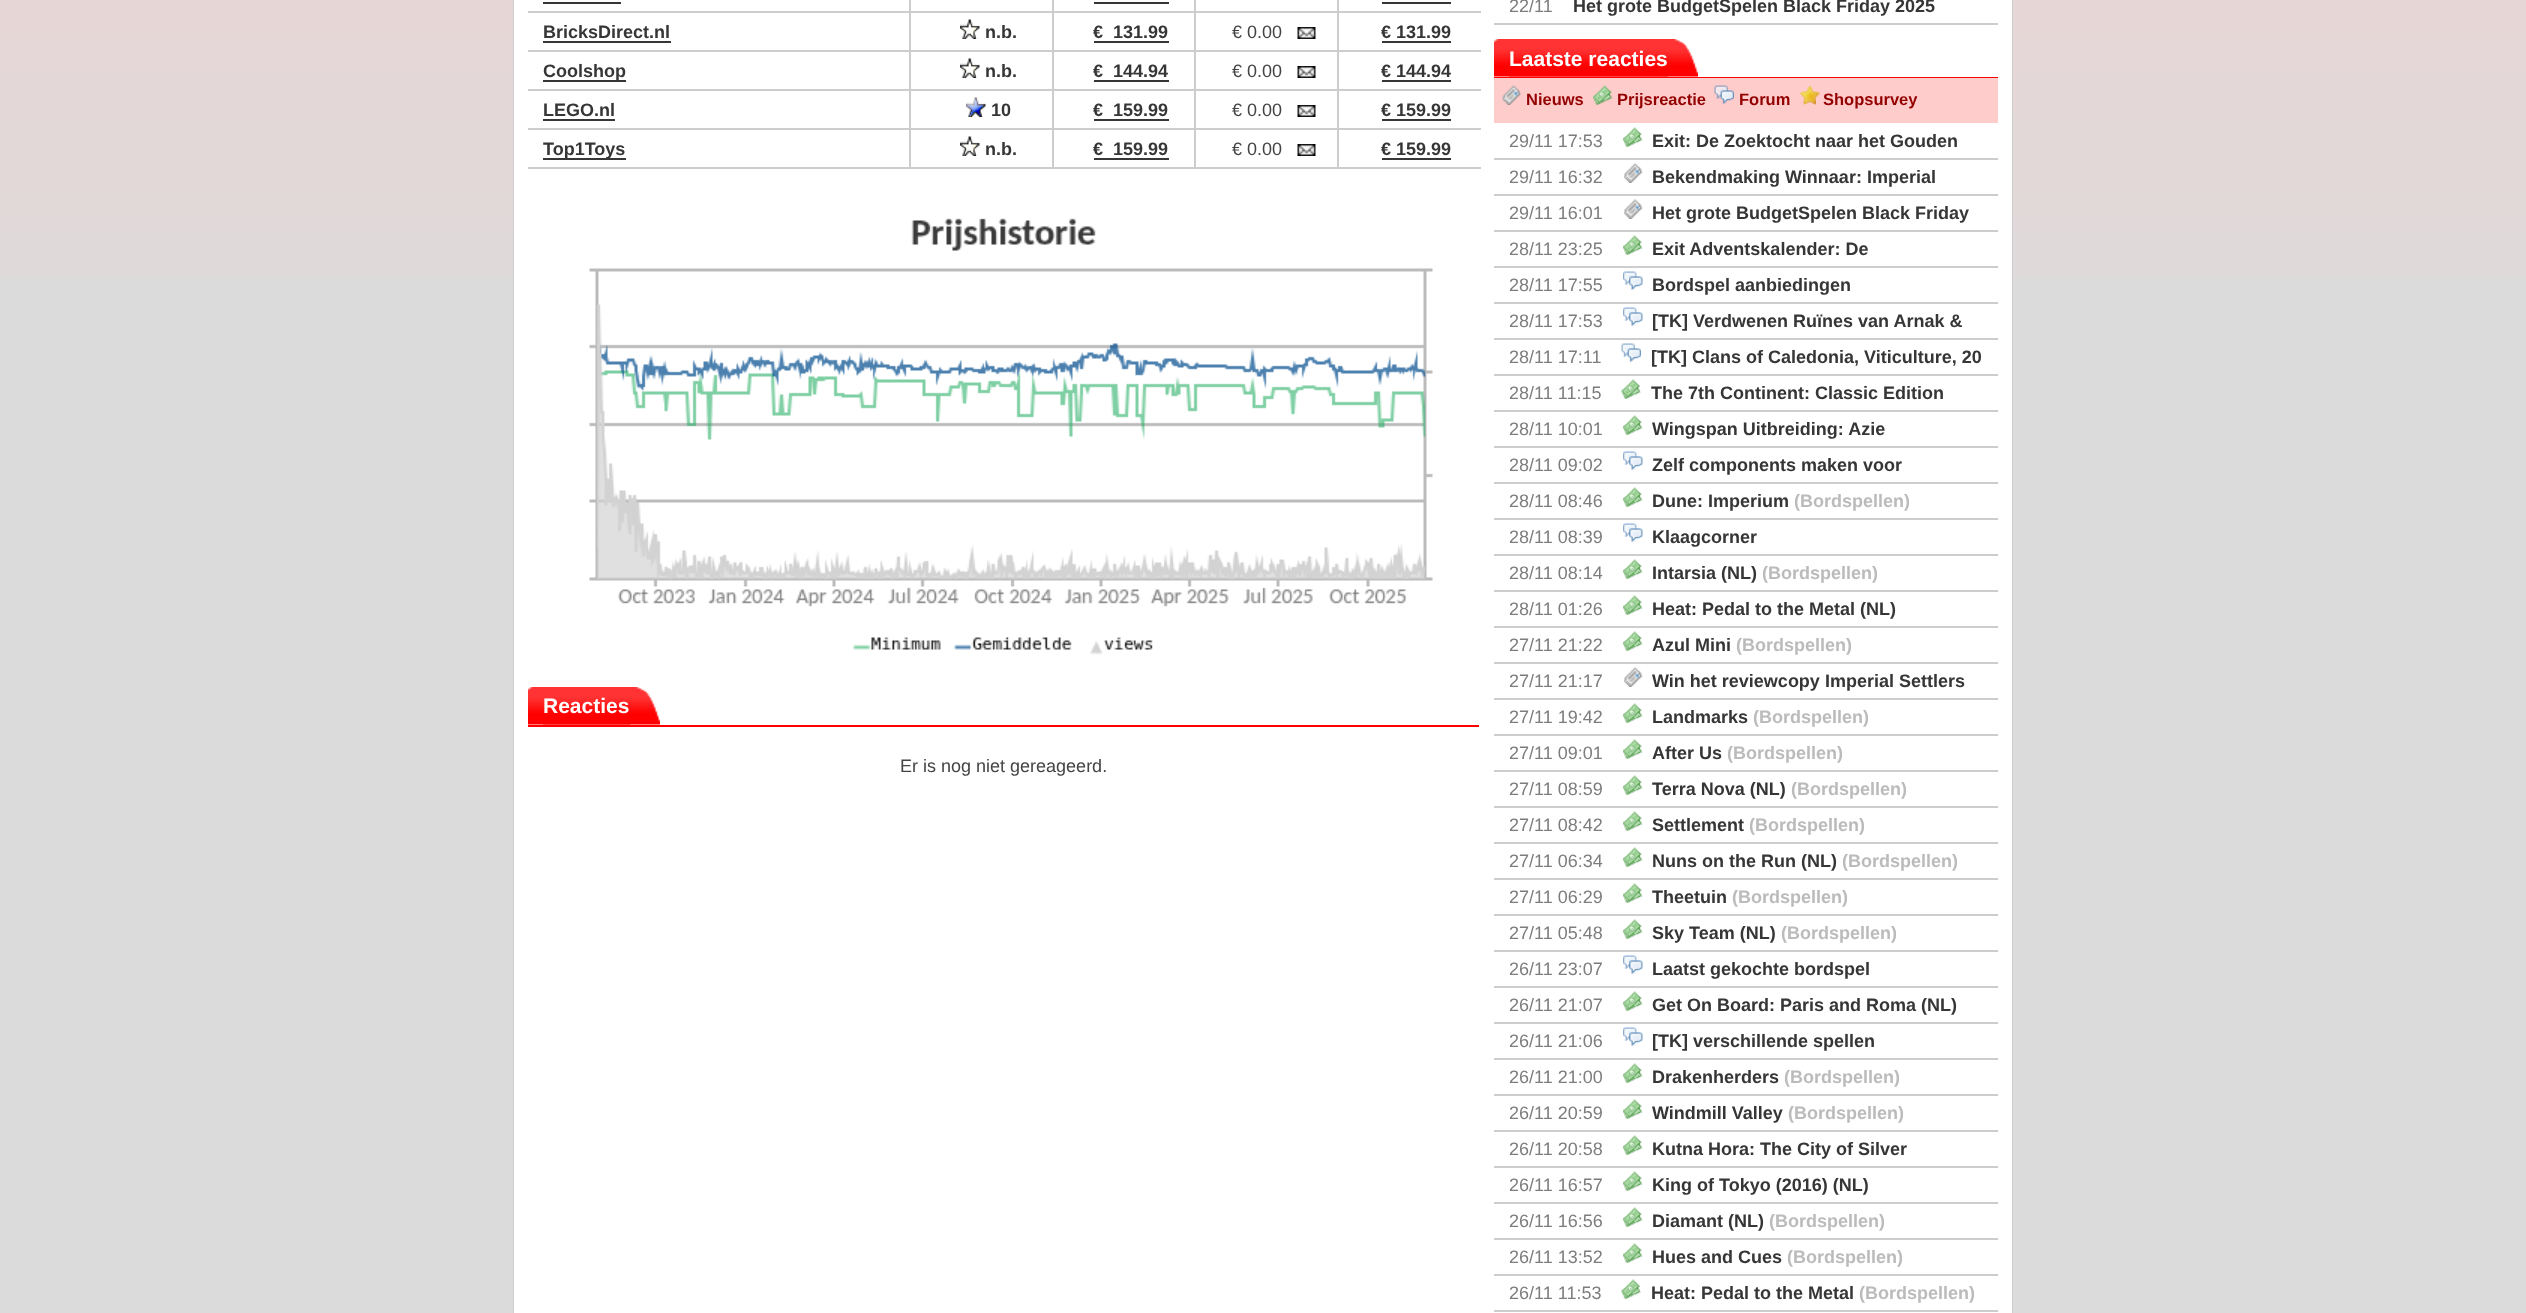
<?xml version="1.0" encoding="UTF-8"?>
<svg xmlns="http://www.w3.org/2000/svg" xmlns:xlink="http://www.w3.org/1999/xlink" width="2526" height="1313">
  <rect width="100%" height="100%" fill="#dbdbdb" />
  <image x="0" y="0" width="2526" height="277" xlink:href="image1.png" />
  <rect x="514" width="1498" height="1313" fill="#ffffff" />
  <path d="M 528 -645 h 1470 c 8 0 15 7 15 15 v 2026 h -1500 v -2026 c 0 -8 7 -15 15 -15 z m 0 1 h 1470 c 7 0 14 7 14 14 v 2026 h -1498 v -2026 c 0 -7 7 -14 14 -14 z" fill="#cdcdcd" fill-rule="evenodd" />
  <rect x="1337" y="167" width="144" height="2" fill="#cdcdcd" />
  <rect x="1337" y="128" width="2" height="40" fill="#cdcdcd" />
  <rect x="1337" y="128" width="144" height="2" fill="#cdcdcd" />
  <rect x="1337" y="89" width="2" height="40" fill="#cdcdcd" />
  <rect x="1337" y="89" width="144" height="2" fill="#cdcdcd" />
  <rect x="1337" y="50" width="2" height="40" fill="#cdcdcd" />
  <rect x="1337" y="50" width="144" height="2" fill="#cdcdcd" />
  <rect x="1337" y="11" width="2" height="40" fill="#cdcdcd" />
  <rect x="1337" y="11" width="144" height="2" fill="#cdcdcd" />
  <rect x="1337" width="2" height="12" fill="#cdcdcd" />
  <rect x="1194" y="167" width="144" height="2" fill="#cdcdcd" />
  <rect x="1194" y="128" width="2" height="40" fill="#cdcdcd" />
  <rect x="1194" y="128" width="144" height="2" fill="#cdcdcd" />
  <rect x="1194" y="89" width="2" height="40" fill="#cdcdcd" />
  <rect x="1194" y="89" width="144" height="2" fill="#cdcdcd" />
  <rect x="1194" y="50" width="2" height="40" fill="#cdcdcd" />
  <rect x="1194" y="50" width="144" height="2" fill="#cdcdcd" />
  <rect x="1194" y="11" width="2" height="40" fill="#cdcdcd" />
  <rect x="1194" y="11" width="144" height="2" fill="#cdcdcd" />
  <rect x="1194" width="2" height="12" fill="#cdcdcd" />
  <rect x="1052" y="167" width="144" height="2" fill="#cdcdcd" />
  <rect x="1052" y="128" width="2" height="40" fill="#cdcdcd" />
  <rect x="1052" y="128" width="144" height="2" fill="#cdcdcd" />
  <rect x="1052" y="89" width="2" height="40" fill="#cdcdcd" />
  <rect x="1052" y="89" width="144" height="2" fill="#cdcdcd" />
  <rect x="1052" y="50" width="2" height="40" fill="#cdcdcd" />
  <rect x="1052" y="50" width="144" height="2" fill="#cdcdcd" />
  <rect x="1052" y="11" width="2" height="40" fill="#cdcdcd" />
  <rect x="1052" y="11" width="144" height="2" fill="#cdcdcd" />
  <rect x="1052" width="2" height="12" fill="#cdcdcd" />
  <rect x="909" y="167" width="144" height="2" fill="#cdcdcd" />
  <rect x="909" y="128" width="2" height="40" fill="#cdcdcd" />
  <rect x="909" y="128" width="144" height="2" fill="#cdcdcd" />
  <rect x="909" y="89" width="2" height="40" fill="#cdcdcd" />
  <rect x="909" y="89" width="144" height="2" fill="#cdcdcd" />
  <rect x="909" y="50" width="2" height="40" fill="#cdcdcd" />
  <rect x="909" y="50" width="144" height="2" fill="#cdcdcd" />
  <rect x="909" y="11" width="2" height="40" fill="#cdcdcd" />
  <rect x="909" y="11" width="144" height="2" fill="#cdcdcd" />
  <rect x="909" width="2" height="12" fill="#cdcdcd" />
  <rect x="528" y="11" width="383" height="2" fill="#cdcdcd" />
  <rect x="543" y="2" width="78" height="2" fill="#363636" />
  <rect x="1094" y="2" width="75" height="2" fill="#363636" />
  <rect x="1382" y="2" width="69" height="2" fill="#363636" />
  <rect x="528" y="50" width="383" height="2" fill="#cdcdcd" />
  <rect x="543" y="41" width="128" height="2" fill="#363636" />
  <image x="960" y="19" width="20" height="20" xlink:href="image2.png" />
  <rect x="1094" y="41" width="75" height="2" fill="#363636" />
  <image x="1297" y="27" width="19" height="12" xlink:href="image3.png" />
  <rect x="1382" y="41" width="69" height="2" fill="#363636" />
  <rect x="528" y="89" width="383" height="2" fill="#cdcdcd" />
  <rect x="543" y="80" width="83" height="2" fill="#363636" />
  <image x="960" y="58" width="20" height="20" xlink:href="image2.png" />
  <rect x="1094" y="80" width="75" height="2" fill="#363636" />
  <image x="1297" y="66" width="19" height="12" xlink:href="image3.png" />
  <rect x="1382" y="80" width="69" height="2" fill="#363636" />
  <rect x="528" y="128" width="383" height="2" fill="#cdcdcd" />
  <rect x="543" y="119" width="72" height="2" fill="#363636" />
  <image x="966" y="97" width="20" height="20" xlink:href="image4.png" />
  <rect x="1094" y="119" width="75" height="2" fill="#363636" />
  <image x="1297" y="105" width="19" height="12" xlink:href="image3.png" />
  <rect x="1382" y="119" width="69" height="2" fill="#363636" />
  <rect x="528" y="167" width="383" height="2" fill="#cdcdcd" />
  <rect x="543" y="158" width="83" height="2" fill="#363636" />
  <image x="960" y="136" width="20" height="20" xlink:href="image2.png" />
  <rect x="1094" y="158" width="75" height="2" fill="#363636" />
  <image x="1297" y="144" width="19" height="12" xlink:href="image3.png" />
  <rect x="1382" y="158" width="69" height="2" fill="#363636" />
  <image x="589" y="218" width="844" height="437" xlink:href="image5.png" />
  <rect x="528" y="725" width="951" height="2" fill="#ff0000" />
  <image x="543" y="687" width="117" height="38" xlink:href="image6.png" />
  <image x="528" y="687" width="102" height="38" xlink:href="image7.png" />
  <rect x="1494" y="23" width="504" height="2" fill="#cdcdcd" />
  <rect x="1494" y="77" width="504" height="1" fill="#ff0000" />
  <image x="1509" y="39" width="189" height="38" xlink:href="image8.png" />
  <image x="1494" y="39" width="174" height="38" xlink:href="image9.png" />
  <rect x="1494" y="78" width="504" height="45" fill="#ffcccc" />
  <image x="1502" y="85" width="19" height="20" xlink:href="image10.png" />
  <image x="1593" y="85" width="20" height="20" xlink:href="image11.png" />
  <image x="1714" y="85" width="20" height="19" xlink:href="image12.png" />
  <image x="1800" y="85" width="20" height="20" xlink:href="image13.png" />
  <rect x="1494" y="158" width="504" height="2" fill="#cdcdcd" />
  <image x="1623" y="127" width="20" height="20" xlink:href="image14.png" />
  <rect x="1494" y="194" width="504" height="2" fill="#cdcdcd" />
  <image x="1624" y="163" width="19" height="20" xlink:href="image15.png" />
  <rect x="1494" y="230" width="504" height="2" fill="#cdcdcd" />
  <image x="1624" y="199" width="19" height="20" xlink:href="image15.png" />
  <rect x="1494" y="266" width="504" height="2" fill="#cdcdcd" />
  <image x="1623" y="235" width="20" height="20" xlink:href="image14.png" />
  <rect x="1494" y="302" width="504" height="2" fill="#cdcdcd" />
  <image x="1623" y="271" width="20" height="19" xlink:href="image16.png" />
  <rect x="1494" y="338" width="504" height="2" fill="#cdcdcd" />
  <image x="1623" y="307" width="20" height="19" xlink:href="image16.png" />
  <rect x="1494" y="374" width="504" height="2" fill="#cdcdcd" />
  <image x="1621" y="343" width="20" height="19" xlink:href="image17.png" />
  <rect x="1494" y="410" width="504" height="2" fill="#cdcdcd" />
  <image x="1621" y="379" width="20" height="20" xlink:href="image18.png" />
  <rect x="1494" y="446" width="504" height="2" fill="#cdcdcd" />
  <image x="1623" y="415" width="20" height="20" xlink:href="image14.png" />
  <rect x="1494" y="482" width="504" height="2" fill="#cdcdcd" />
  <image x="1623" y="451" width="20" height="19" xlink:href="image16.png" />
  <rect x="1494" y="518" width="504" height="2" fill="#cdcdcd" />
  <image x="1623" y="487" width="20" height="20" xlink:href="image14.png" />
  <rect x="1494" y="554" width="504" height="2" fill="#cdcdcd" />
  <image x="1623" y="523" width="20" height="19" xlink:href="image16.png" />
  <rect x="1494" y="590" width="504" height="2" fill="#cdcdcd" />
  <image x="1623" y="559" width="20" height="20" xlink:href="image14.png" />
  <rect x="1494" y="626" width="504" height="2" fill="#cdcdcd" />
  <image x="1623" y="595" width="20" height="20" xlink:href="image14.png" />
  <rect x="1494" y="662" width="504" height="2" fill="#cdcdcd" />
  <image x="1623" y="631" width="20" height="20" xlink:href="image14.png" />
  <rect x="1494" y="698" width="504" height="2" fill="#cdcdcd" />
  <image x="1624" y="667" width="19" height="20" xlink:href="image15.png" />
  <rect x="1494" y="734" width="504" height="2" fill="#cdcdcd" />
  <image x="1623" y="703" width="20" height="20" xlink:href="image14.png" />
  <rect x="1494" y="770" width="504" height="2" fill="#cdcdcd" />
  <image x="1623" y="739" width="20" height="20" xlink:href="image14.png" />
  <rect x="1494" y="806" width="504" height="2" fill="#cdcdcd" />
  <image x="1623" y="775" width="20" height="20" xlink:href="image14.png" />
  <rect x="1494" y="842" width="504" height="2" fill="#cdcdcd" />
  <image x="1623" y="811" width="20" height="20" xlink:href="image14.png" />
  <rect x="1494" y="878" width="504" height="2" fill="#cdcdcd" />
  <image x="1623" y="847" width="20" height="20" xlink:href="image14.png" />
  <rect x="1494" y="914" width="504" height="2" fill="#cdcdcd" />
  <image x="1623" y="883" width="20" height="20" xlink:href="image14.png" />
  <rect x="1494" y="950" width="504" height="2" fill="#cdcdcd" />
  <image x="1623" y="919" width="20" height="20" xlink:href="image14.png" />
  <rect x="1494" y="986" width="504" height="2" fill="#cdcdcd" />
  <image x="1623" y="955" width="20" height="19" xlink:href="image16.png" />
  <rect x="1494" y="1022" width="504" height="2" fill="#cdcdcd" />
  <image x="1623" y="991" width="20" height="20" xlink:href="image14.png" />
  <rect x="1494" y="1058" width="504" height="2" fill="#cdcdcd" />
  <image x="1623" y="1027" width="20" height="19" xlink:href="image16.png" />
  <rect x="1494" y="1094" width="504" height="2" fill="#cdcdcd" />
  <image x="1623" y="1063" width="20" height="20" xlink:href="image14.png" />
  <rect x="1494" y="1130" width="504" height="2" fill="#cdcdcd" />
  <image x="1623" y="1099" width="20" height="20" xlink:href="image14.png" />
  <rect x="1494" y="1166" width="504" height="2" fill="#cdcdcd" />
  <image x="1623" y="1135" width="20" height="20" xlink:href="image14.png" />
  <rect x="1494" y="1202" width="504" height="2" fill="#cdcdcd" />
  <image x="1623" y="1171" width="20" height="20" xlink:href="image14.png" />
  <rect x="1494" y="1238" width="504" height="2" fill="#cdcdcd" />
  <image x="1623" y="1207" width="20" height="20" xlink:href="image14.png" />
  <rect x="1494" y="1274" width="504" height="2" fill="#cdcdcd" />
  <image x="1623" y="1243" width="20" height="20" xlink:href="image14.png" />
  <rect x="1494" y="1310" width="504" height="2" fill="#cdcdcd" />
  <image x="1621" y="1279" width="20" height="20" xlink:href="image18.png" />
  <text x="543" y="38" style="font-family: Liberation Sans; font-size: 18px; font-weight: bold; fill: #363636">BricksDirect.nl</text>
  <text x="985" y="38" style="font-family: Liberation Sans; font-size: 18px; font-weight: bold; fill: #363636">n.b.</text>
  <text x="1093" y="38" style="font-family: Liberation Sans; font-size: 18px; font-weight: bold; fill: #363636" xml:space="preserve">€  131.99</text>
  <text x="1232" y="38" style="font-family: Liberation Sans; font-size: 18px; fill: #444444">€ 0.00</text>
  <text x="1381" y="38" style="font-family: Liberation Sans; font-size: 18px; font-weight: bold; fill: #363636">€ 131.99</text>
  <text x="543" y="77" style="font-family: Liberation Sans; font-size: 18px; font-weight: bold; fill: #363636">Coolshop</text>
  <text x="985" y="77" style="font-family: Liberation Sans; font-size: 18px; font-weight: bold; fill: #363636">n.b.</text>
  <text x="1093" y="77" style="font-family: Liberation Sans; font-size: 18px; font-weight: bold; fill: #363636" xml:space="preserve">€  144.94</text>
  <text x="1232" y="77" style="font-family: Liberation Sans; font-size: 18px; fill: #444444">€ 0.00</text>
  <text x="1381" y="77" style="font-family: Liberation Sans; font-size: 18px; font-weight: bold; fill: #363636">€ 144.94</text>
  <text x="543" y="116" style="font-family: Liberation Sans; font-size: 18px; font-weight: bold; fill: #363636">LEGO.nl</text>
  <text x="991" y="116" style="font-family: Liberation Sans; font-size: 18px; font-weight: bold; fill: #363636">10</text>
  <text x="1093" y="116" style="font-family: Liberation Sans; font-size: 18px; font-weight: bold; fill: #363636" xml:space="preserve">€  159.99</text>
  <text x="1232" y="116" style="font-family: Liberation Sans; font-size: 18px; fill: #444444">€ 0.00</text>
  <text x="1381" y="116" style="font-family: Liberation Sans; font-size: 18px; font-weight: bold; fill: #363636">€ 159.99</text>
  <text x="543" y="155" style="font-family: Liberation Sans; font-size: 18px; font-weight: bold; fill: #363636">Top1Toys</text>
  <text x="985" y="155" style="font-family: Liberation Sans; font-size: 18px; font-weight: bold; fill: #363636">n.b.</text>
  <text x="1093" y="155" style="font-family: Liberation Sans; font-size: 18px; font-weight: bold; fill: #363636" xml:space="preserve">€  159.99</text>
  <text x="1232" y="155" style="font-family: Liberation Sans; font-size: 18px; fill: #444444">€ 0.00</text>
  <text x="1381" y="155" style="font-family: Liberation Sans; font-size: 18px; font-weight: bold; fill: #363636">€ 159.99</text>
  <text x="543" y="713" style="font-family: Liberation Sans; font-size: 21px; font-weight: bold; fill: #ffffff">Reacties</text>
  <text x="900" y="772" style="font-family: Liberation Sans; font-size: 18px; fill: #444444">Er is nog niet gereageerd.</text>
  <text x="1509" y="12" style="font-family: Liberation Sans; font-size: 18px; fill: #7d7d7d">22/11</text>
  <text x="1573" y="12" style="font-family: Liberation Sans; font-size: 18px; font-weight: bold; fill: #363636">Het grote BudgetSpelen Black Friday 2025</text>
  <text x="1509" y="66" style="font-family: Liberation Sans; font-size: 21px; font-weight: bold; fill: #ffffff">Laatste reacties</text>
  <text x="1526" y="105" style="font-family: Liberation Sans; font-size: 16.5px; font-weight: bold; fill: #930000">Nieuws</text>
  <text x="1617" y="105" style="font-family: Liberation Sans; font-size: 16.5px; font-weight: bold; fill: #930000">Prijsreactie</text>
  <text x="1739" y="105" style="font-family: Liberation Sans; font-size: 16.5px; font-weight: bold; fill: #930000">Forum</text>
  <text x="1823" y="105" style="font-family: Liberation Sans; font-size: 16.5px; font-weight: bold; fill: #930000">Shopsurvey</text>
  <text x="1509" y="147" style="font-family: Liberation Sans; font-size: 18px; fill: #7d7d7d">29/11 17:53</text>
  <text x="1652" y="147" style="font-family: Liberation Sans; font-size: 18px; font-weight: bold; fill: #363636">Exit: De Zoektocht naar het Gouden</text>
  <text x="1509" y="183" style="font-family: Liberation Sans; font-size: 18px; fill: #7d7d7d">29/11 16:32</text>
  <text x="1652" y="183" style="font-family: Liberation Sans; font-size: 18px; font-weight: bold; fill: #363636">Bekendmaking Winnaar: Imperial</text>
  <text x="1509" y="219" style="font-family: Liberation Sans; font-size: 18px; fill: #7d7d7d">29/11 16:01</text>
  <text x="1652" y="219" style="font-family: Liberation Sans; font-size: 18px; font-weight: bold; fill: #363636">Het grote BudgetSpelen Black Friday</text>
  <text x="1509" y="255" style="font-family: Liberation Sans; font-size: 18px; fill: #7d7d7d">28/11 23:25</text>
  <text x="1652" y="255" style="font-family: Liberation Sans; font-size: 18px; font-weight: bold; fill: #363636">Exit Adventskalender: De</text>
  <text x="1509" y="291" style="font-family: Liberation Sans; font-size: 18px; fill: #7d7d7d">28/11 17:55</text>
  <text x="1652" y="291" style="font-family: Liberation Sans; font-size: 18px; font-weight: bold; fill: #363636">Bordspel aanbiedingen</text>
  <text x="1509" y="327" style="font-family: Liberation Sans; font-size: 18px; fill: #7d7d7d">28/11 17:53</text>
  <text x="1652" y="327" style="font-family: Liberation Sans; font-size: 18px; font-weight: bold; fill: #363636">[TK] Verdwenen Ruïnes van Arnak &amp;</text>
  <text x="1509" y="363" style="font-family: Liberation Sans; font-size: 18px; fill: #7d7d7d">28/11 17:11</text>
  <text x="1651" y="363" style="font-family: Liberation Sans; font-size: 18px; font-weight: bold; fill: #363636">[TK] Clans of Caledonia, Viticulture, 20</text>
  <text x="1509" y="399" style="font-family: Liberation Sans; font-size: 18px; fill: #7d7d7d">28/11 11:15</text>
  <text x="1651" y="399" style="font-family: Liberation Sans; font-size: 18px; font-weight: bold; fill: #363636">The 7th Continent: Classic Edition</text>
  <text x="1509" y="435" style="font-family: Liberation Sans; font-size: 18px; fill: #7d7d7d">28/11 10:01</text>
  <text x="1652" y="435" style="font-family: Liberation Sans; font-size: 18px; font-weight: bold; fill: #363636">Wingspan Uitbreiding: Azie</text>
  <text x="1509" y="471" style="font-family: Liberation Sans; font-size: 18px; fill: #7d7d7d">28/11 09:02</text>
  <text x="1652" y="471" style="font-family: Liberation Sans; font-size: 18px; font-weight: bold; fill: #363636">Zelf components maken voor</text>
  <text x="1509" y="507" style="font-family: Liberation Sans; font-size: 18px; fill: #7d7d7d">28/11 08:46</text>
  <text x="1652" y="507" style="font-family: Liberation Sans; font-size: 18px; font-weight: bold; fill: #363636">Dune: Imperium</text>
  <text x="1794" y="507" style="font-family: Liberation Sans; font-size: 18px; font-weight: bold; fill: #bbbbbb">(Bordspellen)</text>
  <text x="1509" y="543" style="font-family: Liberation Sans; font-size: 18px; fill: #7d7d7d">28/11 08:39</text>
  <text x="1652" y="543" style="font-family: Liberation Sans; font-size: 18px; font-weight: bold; fill: #363636">Klaagcorner</text>
  <text x="1509" y="579" style="font-family: Liberation Sans; font-size: 18px; fill: #7d7d7d">28/11 08:14</text>
  <text x="1652" y="579" style="font-family: Liberation Sans; font-size: 18px; font-weight: bold; fill: #363636">Intarsia (NL)</text>
  <text x="1762" y="579" style="font-family: Liberation Sans; font-size: 18px; font-weight: bold; fill: #bbbbbb">(Bordspellen)</text>
  <text x="1509" y="615" style="font-family: Liberation Sans; font-size: 18px; fill: #7d7d7d">28/11 01:26</text>
  <text x="1652" y="615" style="font-family: Liberation Sans; font-size: 18px; font-weight: bold; fill: #363636">Heat: Pedal to the Metal (NL)</text>
  <text x="1509" y="651" style="font-family: Liberation Sans; font-size: 18px; fill: #7d7d7d">27/11 21:22</text>
  <text x="1652" y="651" style="font-family: Liberation Sans; font-size: 18px; font-weight: bold; fill: #363636">Azul Mini</text>
  <text x="1736" y="651" style="font-family: Liberation Sans; font-size: 18px; font-weight: bold; fill: #bbbbbb">(Bordspellen)</text>
  <text x="1509" y="687" style="font-family: Liberation Sans; font-size: 18px; fill: #7d7d7d">27/11 21:17</text>
  <text x="1652" y="687" style="font-family: Liberation Sans; font-size: 18px; font-weight: bold; fill: #363636">Win het reviewcopy Imperial Settlers</text>
  <text x="1509" y="723" style="font-family: Liberation Sans; font-size: 18px; fill: #7d7d7d">27/11 19:42</text>
  <text x="1652" y="723" style="font-family: Liberation Sans; font-size: 18px; font-weight: bold; fill: #363636">Landmarks</text>
  <text x="1753" y="723" style="font-family: Liberation Sans; font-size: 18px; font-weight: bold; fill: #bbbbbb">(Bordspellen)</text>
  <text x="1509" y="759" style="font-family: Liberation Sans; font-size: 18px; fill: #7d7d7d">27/11 09:01</text>
  <text x="1652" y="759" style="font-family: Liberation Sans; font-size: 18px; font-weight: bold; fill: #363636">After Us</text>
  <text x="1727" y="759" style="font-family: Liberation Sans; font-size: 18px; font-weight: bold; fill: #bbbbbb">(Bordspellen)</text>
  <text x="1509" y="795" style="font-family: Liberation Sans; font-size: 18px; fill: #7d7d7d">27/11 08:59</text>
  <text x="1652" y="795" style="font-family: Liberation Sans; font-size: 18px; font-weight: bold; fill: #363636">Terra Nova (NL)</text>
  <text x="1791" y="795" style="font-family: Liberation Sans; font-size: 18px; font-weight: bold; fill: #bbbbbb">(Bordspellen)</text>
  <text x="1509" y="831" style="font-family: Liberation Sans; font-size: 18px; fill: #7d7d7d">27/11 08:42</text>
  <text x="1652" y="831" style="font-family: Liberation Sans; font-size: 18px; font-weight: bold; fill: #363636">Settlement</text>
  <text x="1749" y="831" style="font-family: Liberation Sans; font-size: 18px; font-weight: bold; fill: #bbbbbb">(Bordspellen)</text>
  <text x="1509" y="867" style="font-family: Liberation Sans; font-size: 18px; fill: #7d7d7d">27/11 06:34</text>
  <text x="1652" y="867" style="font-family: Liberation Sans; font-size: 18px; font-weight: bold; fill: #363636">Nuns on the Run (NL)</text>
  <text x="1842" y="867" style="font-family: Liberation Sans; font-size: 18px; font-weight: bold; fill: #bbbbbb">(Bordspellen)</text>
  <text x="1509" y="903" style="font-family: Liberation Sans; font-size: 18px; fill: #7d7d7d">27/11 06:29</text>
  <text x="1652" y="903" style="font-family: Liberation Sans; font-size: 18px; font-weight: bold; fill: #363636">Theetuin</text>
  <text x="1732" y="903" style="font-family: Liberation Sans; font-size: 18px; font-weight: bold; fill: #bbbbbb">(Bordspellen)</text>
  <text x="1509" y="939" style="font-family: Liberation Sans; font-size: 18px; fill: #7d7d7d">27/11 05:48</text>
  <text x="1652" y="939" style="font-family: Liberation Sans; font-size: 18px; font-weight: bold; fill: #363636">Sky Team (NL)</text>
  <text x="1781" y="939" style="font-family: Liberation Sans; font-size: 18px; font-weight: bold; fill: #bbbbbb">(Bordspellen)</text>
  <text x="1509" y="975" style="font-family: Liberation Sans; font-size: 18px; fill: #7d7d7d">26/11 23:07</text>
  <text x="1652" y="975" style="font-family: Liberation Sans; font-size: 18px; font-weight: bold; fill: #363636">Laatst gekochte bordspel</text>
  <text x="1509" y="1011" style="font-family: Liberation Sans; font-size: 18px; fill: #7d7d7d">26/11 21:07</text>
  <text x="1652" y="1011" style="font-family: Liberation Sans; font-size: 18px; font-weight: bold; fill: #363636">Get On Board: Paris and Roma (NL)</text>
  <text x="1509" y="1047" style="font-family: Liberation Sans; font-size: 18px; fill: #7d7d7d">26/11 21:06</text>
  <text x="1652" y="1047" style="font-family: Liberation Sans; font-size: 18px; font-weight: bold; fill: #363636">[TK] verschillende spellen</text>
  <text x="1509" y="1083" style="font-family: Liberation Sans; font-size: 18px; fill: #7d7d7d">26/11 21:00</text>
  <text x="1652" y="1083" style="font-family: Liberation Sans; font-size: 18px; font-weight: bold; fill: #363636">Drakenherders</text>
  <text x="1784" y="1083" style="font-family: Liberation Sans; font-size: 18px; font-weight: bold; fill: #bbbbbb">(Bordspellen)</text>
  <text x="1509" y="1119" style="font-family: Liberation Sans; font-size: 18px; fill: #7d7d7d">26/11 20:59</text>
  <text x="1652" y="1119" style="font-family: Liberation Sans; font-size: 18px; font-weight: bold; fill: #363636">Windmill Valley</text>
  <text x="1788" y="1119" style="font-family: Liberation Sans; font-size: 18px; font-weight: bold; fill: #bbbbbb">(Bordspellen)</text>
  <text x="1509" y="1155" style="font-family: Liberation Sans; font-size: 18px; fill: #7d7d7d">26/11 20:58</text>
  <text x="1652" y="1155" style="font-family: Liberation Sans; font-size: 18px; font-weight: bold; fill: #363636">Kutna Hora: The City of Silver</text>
  <text x="1509" y="1191" style="font-family: Liberation Sans; font-size: 18px; fill: #7d7d7d">26/11 16:57</text>
  <text x="1652" y="1191" style="font-family: Liberation Sans; font-size: 18px; font-weight: bold; fill: #363636">King of Tokyo (2016) (NL)</text>
  <text x="1509" y="1227" style="font-family: Liberation Sans; font-size: 18px; fill: #7d7d7d">26/11 16:56</text>
  <text x="1652" y="1227" style="font-family: Liberation Sans; font-size: 18px; font-weight: bold; fill: #363636">Diamant (NL)</text>
  <text x="1769" y="1227" style="font-family: Liberation Sans; font-size: 18px; font-weight: bold; fill: #bbbbbb">(Bordspellen)</text>
  <text x="1509" y="1263" style="font-family: Liberation Sans; font-size: 18px; fill: #7d7d7d">26/11 13:52</text>
  <text x="1652" y="1263" style="font-family: Liberation Sans; font-size: 18px; font-weight: bold; fill: #363636">Hues and Cues</text>
  <text x="1787" y="1263" style="font-family: Liberation Sans; font-size: 18px; font-weight: bold; fill: #bbbbbb">(Bordspellen)</text>
  <text x="1509" y="1299" style="font-family: Liberation Sans; font-size: 18px; fill: #7d7d7d">26/11 11:53</text>
  <text x="1651" y="1299" style="font-family: Liberation Sans; font-size: 18px; font-weight: bold; fill: #363636">Heat: Pedal to the Metal</text>
  <text x="1859" y="1299" style="font-family: Liberation Sans; font-size: 18px; font-weight: bold; fill: #bbbbbb">(Bordspellen)</text>
</svg>
